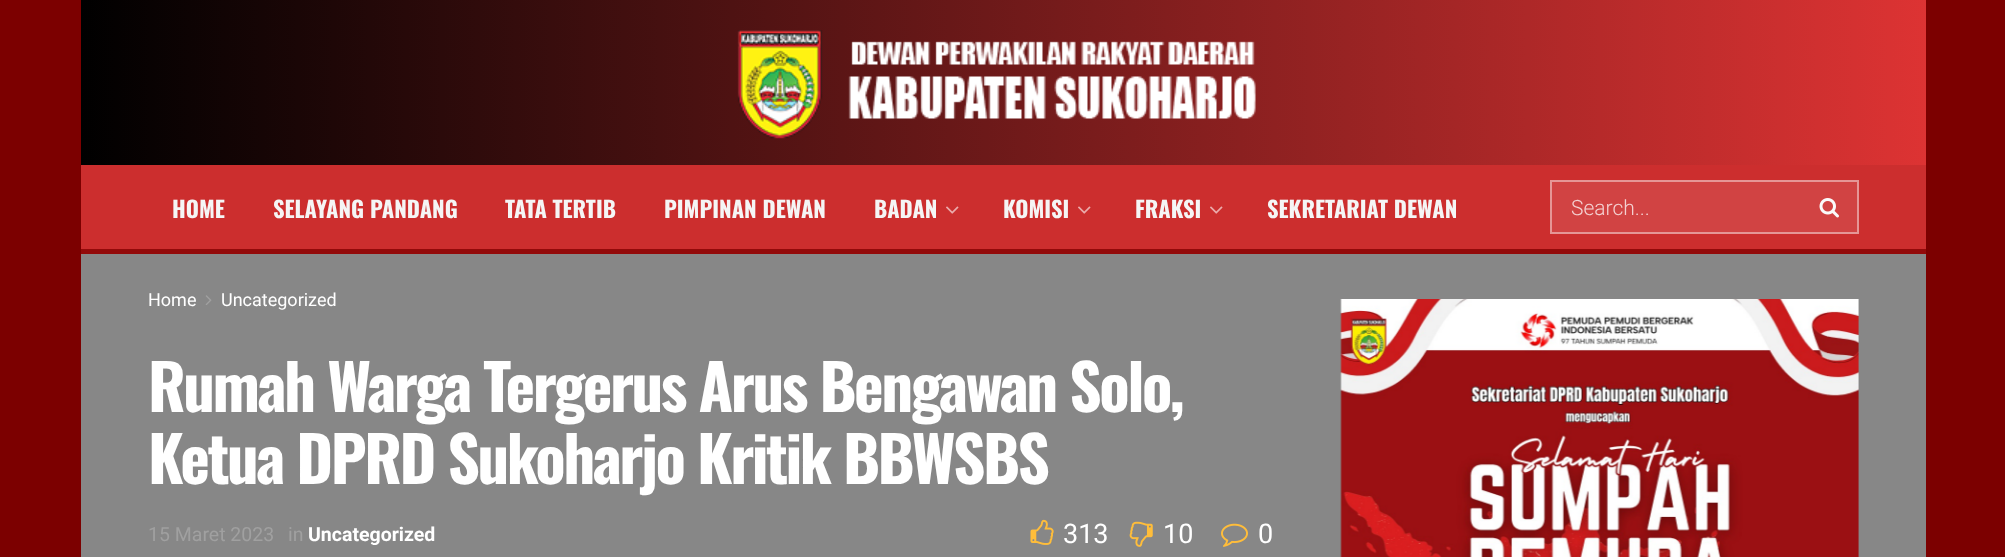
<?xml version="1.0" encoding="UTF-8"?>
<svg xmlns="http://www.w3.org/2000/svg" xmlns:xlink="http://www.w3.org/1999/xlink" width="2005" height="557">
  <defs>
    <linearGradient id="g1" gradientUnits="userSpaceOnUse" x1="81" y1="83" x2="1926" y2="82"><stop offset="0" stop-color="#000000" /><stop offset="1" stop-color="#dd3333" /></linearGradient>
  </defs>
  <rect width="100%" height="100%" fill="#7c0000" />
  <rect x="81" width="1845" height="165" fill="url(#g1)" />
  <image x="737" y="30" width="519" height="109" xlink:href="image1.png" />
  <rect x="81" y="165" width="1845" height="84" fill="#cc2e2e" />
  <rect x="81" y="249" width="1845" height="5" fill="#930a0a" />
  <image x="946" y="206" width="13" height="8" xlink:href="image2.png" />
  <image x="1078" y="206" width="13" height="8" xlink:href="image2.png" />
  <image x="1210" y="206" width="13" height="8" xlink:href="image2.png" />
  <rect x="1551" y="181" width="307" height="52" fill="#d14343" stroke="#e59696" stroke-width="2" />
  <image x="1819" y="198" width="20" height="20" xlink:href="image3.png" />
  <rect x="81" y="254" width="1845" height="303" fill="#878787" />
  <image x="205" y="295" width="7" height="10" xlink:href="image4.png" />
  <image x="1030" y="519" width="24" height="26" xlink:href="image5.png" />
  <image x="1129" y="521" width="24" height="26" xlink:href="image6.png" />
  <image x="1221" y="523" width="27" height="24" xlink:href="image7.png" />
  <image x="1340" y="299" width="519" height="258" xlink:href="image8.png" />
  <text x="172" y="218" style="font-family: Oswald; font-size: 22.5px; font-weight: bold; fill: #f5f5f5">HOME</text>
  <text x="273" y="218" style="font-family: Oswald; font-size: 22.5px; font-weight: bold; fill: #f5f5f5">SELAYANG PANDANG</text>
  <text x="505" y="218" style="font-family: Oswald; font-size: 22.5px; font-weight: bold; fill: #f5f5f5">TATA TERTIB</text>
  <text x="664" y="218" style="font-family: Oswald; font-size: 22.5px; font-weight: bold; fill: #f5f5f5">PIMPINAN DEWAN</text>
  <text x="874" y="218" style="font-family: Oswald; font-size: 22.5px; font-weight: bold; fill: #f5f5f5">BADAN</text>
  <text x="1003" y="218" style="font-family: Oswald; font-size: 22.5px; font-weight: bold; fill: #f5f5f5">KOMISI</text>
  <text x="1135" y="218" style="font-family: Oswald; font-size: 22.5px; font-weight: bold; fill: #f5f5f5">FRAKSI</text>
  <text x="1267" y="218" style="font-family: Oswald; font-size: 22.5px; font-weight: bold; fill: #f5f5f5">SEKRETARIAT DEWAN</text>
  <text x="1571" y="215" style="font-family: Roboto; font-size: 21px; font-weight: 300; fill: #f4d0d0">Search...</text>
  <text x="148" y="306" style="font-family: Roboto; font-size: 18px; fill: #ffffff">Home</text>
  <text x="221" y="306" style="font-family: Roboto; font-size: 18px; fill: #ffffff">Uncategorized</text>
  <text x="148" y="412" style="font-family: Oswald; font-size: 63px; font-weight: bold; letter-spacing: -2.5px; fill: #ffffff">Rumah Warga Tergerus Arus Bengawan Solo,</text>
  <text x="148" y="484" style="font-family: Oswald; font-size: 63px; font-weight: bold; letter-spacing: -2.5px; fill: #ffffff">Ketua DPRD Sukoharjo Kritik BBWSBS</text>
  <text x="148" y="541" style="font-family: Roboto; font-size: 19.5px; fill: #a0a0a0">15 Maret 2023</text>
  <text x="288" y="541" style="font-family: Roboto; font-size: 19.5px; fill: #a0a0a0">in</text>
  <text x="308" y="541" style="font-family: Roboto; font-size: 19.5px; font-weight: bold; fill: #ffffff">Uncategorized</text>
  <text x="1063" y="543" style="font-family: Roboto; font-size: 27px; fill: #ffffff">313</text>
  <text x="1163" y="543" style="font-family: Roboto; font-size: 27px; fill: #ffffff">10</text>
  <text x="1258" y="543" style="font-family: Roboto; font-size: 27px; fill: #ffffff">0</text>
</svg>
